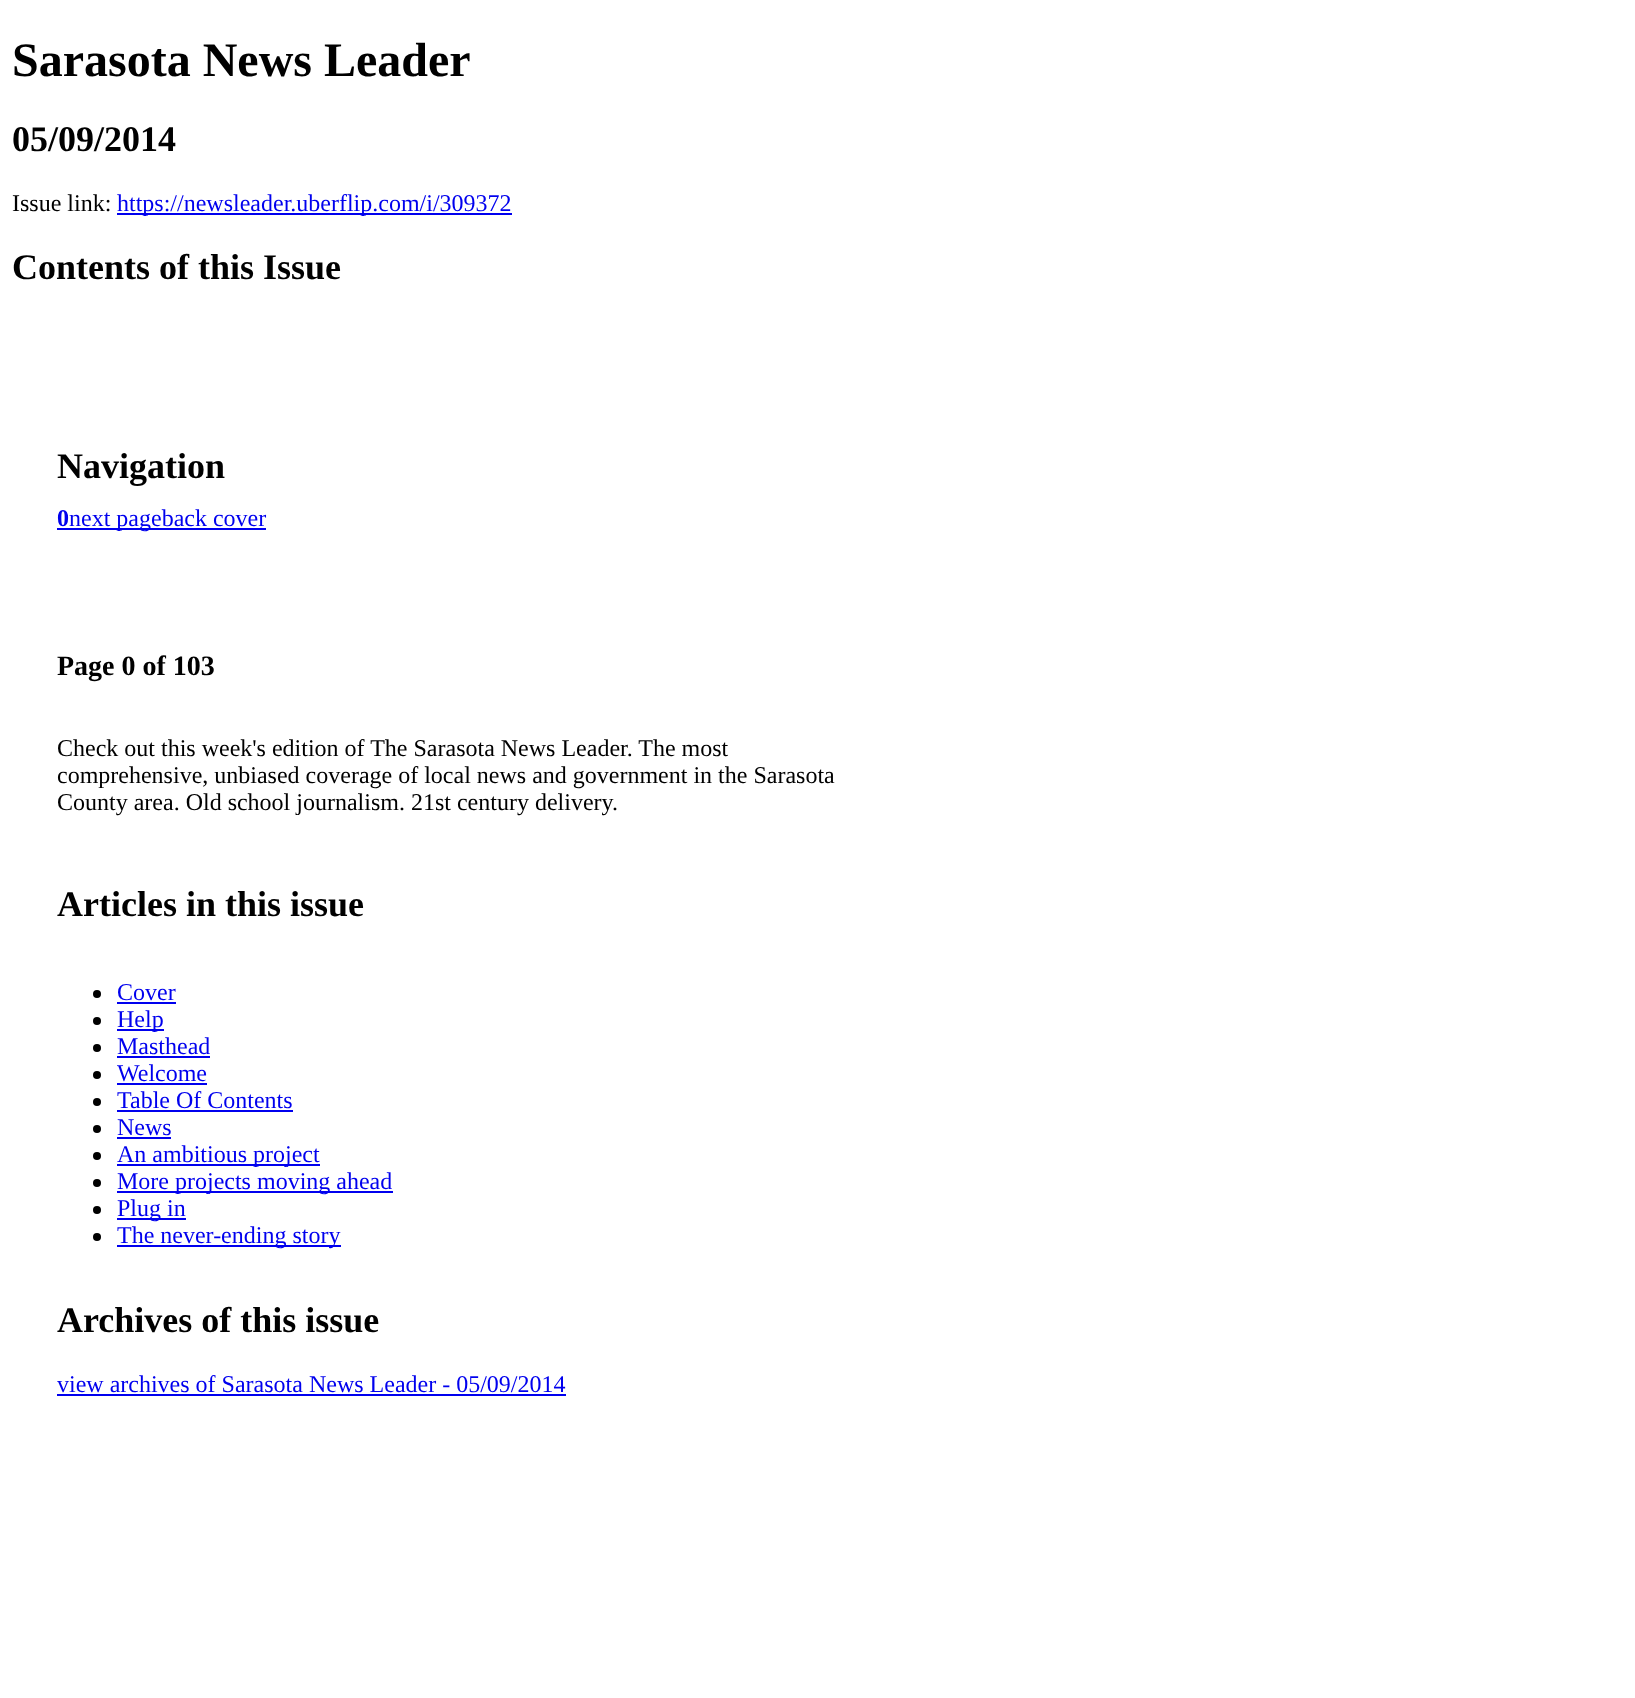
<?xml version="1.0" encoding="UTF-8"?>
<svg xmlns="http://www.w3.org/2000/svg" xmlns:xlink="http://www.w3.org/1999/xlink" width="1635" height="1698">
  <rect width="100%" height="100%" fill="#ffffff" />
  <rect x="117" y="213" width="395" height="2" fill="#0000ee" />
  <rect x="57" y="528" width="209" height="2" fill="#0000ee" />
  <circle cx="97" cy="994" r="4" fill="#000000" />
  <rect x="117" y="1002" width="59" height="2" fill="#0000ee" />
  <circle cx="97" cy="1021" r="4" fill="#000000" />
  <rect x="117" y="1029" width="47" height="2" fill="#0000ee" />
  <circle cx="97" cy="1048" r="4" fill="#000000" />
  <rect x="117" y="1056" width="93" height="2" fill="#0000ee" />
  <circle cx="97" cy="1075" r="4" fill="#000000" />
  <rect x="117" y="1083" width="90" height="2" fill="#0000ee" />
  <circle cx="97" cy="1102" r="4" fill="#000000" />
  <rect x="117" y="1110" width="176" height="2" fill="#0000ee" />
  <circle cx="97" cy="1129" r="4" fill="#000000" />
  <rect x="117" y="1137" width="54" height="2" fill="#0000ee" />
  <circle cx="97" cy="1156" r="4" fill="#000000" />
  <rect x="117" y="1164" width="203" height="2" fill="#0000ee" />
  <circle cx="97" cy="1183" r="4" fill="#000000" />
  <rect x="117" y="1191" width="276" height="2" fill="#0000ee" />
  <circle cx="97" cy="1210" r="4" fill="#000000" />
  <rect x="117" y="1218" width="69" height="2" fill="#0000ee" />
  <circle cx="97" cy="1237" r="4" fill="#000000" />
  <rect x="117" y="1245" width="224" height="2" fill="#0000ee" />
  <rect x="57" y="1394" width="509" height="2" fill="#0000ee" />
  <text x="12" y="76" style="font-family: Liberation Serif; font-size: 48px; font-weight: bold; fill: #000000">Sarasota News Leader</text>
  <text x="12" y="151" style="font-family: Liberation Serif; font-size: 36px; font-weight: bold; fill: #000000">05/09/2014</text>
  <text x="12" y="211" style="font-family: Liberation Serif; font-size: 24px; fill: #000000">Issue link:</text>
  <text x="117" y="211" style="font-family: Liberation Serif; font-size: 24px; fill: #0000ee">https://newsleader.uberflip.com/i/309372</text>
  <text x="12" y="279" style="font-family: Liberation Serif; font-size: 36px; font-weight: bold; fill: #000000">Contents of this Issue</text>
  <text x="57" y="478" style="font-family: Liberation Serif; font-size: 36px; font-weight: bold; fill: #000000">Navigation</text>
  <text x="57" y="526" style="font-family: Liberation Serif; font-size: 24px; font-weight: bold; fill: #0000ee">0</text>
  <text x="69" y="526" style="font-family: Liberation Serif; font-size: 24px; fill: #0000ee">next pageback cover</text>
  <text x="57" y="675" style="font-family: Liberation Serif; font-size: 28px; font-weight: bold; fill: #000000">Page 0 of 103</text>
  <text x="57" y="756" style="font-family: Liberation Serif; font-size: 24px; fill: #000000">Check out this week's edition of The Sarasota News Leader. The most</text>
  <text x="57" y="783" style="font-family: Liberation Serif; font-size: 24px; fill: #000000">comprehensive, unbiased coverage of local news and government in the Sarasota</text>
  <text x="57" y="810" style="font-family: Liberation Serif; font-size: 24px; fill: #000000">County area. Old school journalism. 21st century delivery.</text>
  <text x="57" y="916" style="font-family: Liberation Serif; font-size: 36px; font-weight: bold; fill: #000000">Articles in this issue</text>
  <text x="117" y="1000" style="font-family: Liberation Serif; font-size: 24px; fill: #0000ee">Cover</text>
  <text x="117" y="1027" style="font-family: Liberation Serif; font-size: 24px; fill: #0000ee">Help</text>
  <text x="117" y="1054" style="font-family: Liberation Serif; font-size: 24px; fill: #0000ee">Masthead</text>
  <text x="117" y="1081" style="font-family: Liberation Serif; font-size: 24px; fill: #0000ee">Welcome</text>
  <text x="117" y="1108" style="font-family: Liberation Serif; font-size: 24px; fill: #0000ee">Table Of Contents</text>
  <text x="117" y="1135" style="font-family: Liberation Serif; font-size: 24px; fill: #0000ee">News</text>
  <text x="117" y="1162" style="font-family: Liberation Serif; font-size: 24px; fill: #0000ee">An ambitious project</text>
  <text x="117" y="1189" style="font-family: Liberation Serif; font-size: 24px; fill: #0000ee">More projects moving ahead</text>
  <text x="117" y="1216" style="font-family: Liberation Serif; font-size: 24px; fill: #0000ee">Plug in</text>
  <text x="117" y="1243" style="font-family: Liberation Serif; font-size: 24px; fill: #0000ee">The never-ending story</text>
  <text x="57" y="1332" style="font-family: Liberation Serif; font-size: 36px; font-weight: bold; fill: #000000">Archives of this issue</text>
  <text x="57" y="1392" style="font-family: Liberation Serif; font-size: 24px; fill: #0000ee">view archives of Sarasota News Leader - 05/09/2014</text>
</svg>
